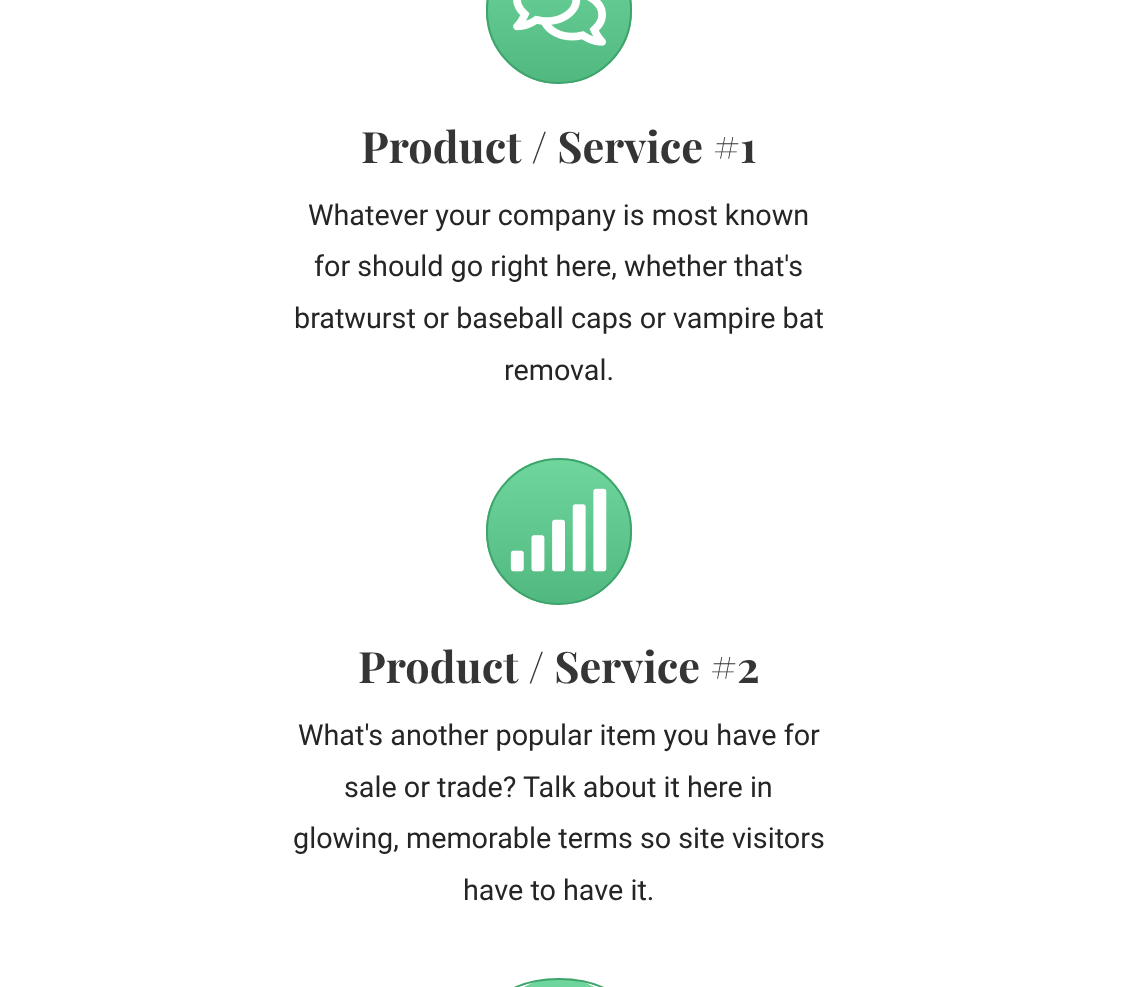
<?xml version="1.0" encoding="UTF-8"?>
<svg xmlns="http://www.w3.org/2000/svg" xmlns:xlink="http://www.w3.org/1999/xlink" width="1140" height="987">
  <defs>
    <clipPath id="clip1"><rect x="486" y="-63" width="146" height="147" rx="73" /></clipPath>
    <linearGradient id="g1" gradientUnits="userSpaceOnUse" x1="559" y1="-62" x2="559" y2="83"><stop offset="0" stop-color="#6fd69d" /><stop offset="1" stop-color="#51b87f" /></linearGradient>
    <clipPath id="clip2"><rect x="486" y="458" width="146" height="147" rx="73" /></clipPath>
    <linearGradient id="g2" gradientUnits="userSpaceOnUse" x1="559" y1="459" x2="559" y2="603"><stop offset="0" stop-color="#6fd69d" /><stop offset="1" stop-color="#51b87f" /></linearGradient>
    <clipPath id="clip3"><rect x="486" y="978" width="146" height="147" rx="73" /></clipPath>
    <linearGradient id="g3" gradientUnits="userSpaceOnUse" x1="559" y1="980" x2="559" y2="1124"><stop offset="0" stop-color="#6fd69d" /><stop offset="1" stop-color="#51b87f" /></linearGradient>
  </defs>
  <rect width="100%" height="100%" fill="#ffffff" />
  <g clip-path="url(#clip1)">
    <rect x="486" width="146" height="83" fill="url(#g1)" />
  </g>
  <rect x="487" y="-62" width="144" height="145" rx="72" fill="none" stroke="#3da46b" stroke-width="2" />
  <image x="513" y="0" width="93" height="46" xlink:href="image1.png" />
  <g clip-path="url(#clip2)">
    <rect x="486" y="459" width="146" height="144" fill="url(#g2)" />
  </g>
  <rect x="487" y="459" width="144" height="145" rx="72" fill="none" stroke="#3da46b" stroke-width="2" />
  <image x="510" y="488" width="97" height="84" xlink:href="image2.png" />
  <g clip-path="url(#clip3)">
    <rect x="524" y="980" width="70" height="7" fill="url(#g3)" />
  </g>
  <rect x="487" y="979" width="144" height="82" rx="72" fill="none" stroke="#3da46b" stroke-width="2" />
  <text x="361" y="163" style="font-family: Playfair Display; font-size: 43.25px; font-weight: bold; fill: #353535">Product / Service #1</text>
  <text x="308" y="225" style="font-family: Roboto; font-size: 28.75px; fill: #252525">Whatever your company is most known</text>
  <text x="314" y="276" style="font-family: Roboto; font-size: 28.75px; fill: #252525">for should go right here, whether that's</text>
  <text x="294" y="328" style="font-family: Roboto; font-size: 28.75px; fill: #252525">bratwurst or baseball caps or vampire bat</text>
  <text x="504" y="380" style="font-family: Roboto; font-size: 28.75px; fill: #252525">removal.</text>
  <text x="358" y="683" style="font-family: Playfair Display; font-size: 43.25px; font-weight: bold; fill: #353535">Product / Service #2</text>
  <text x="298" y="745" style="font-family: Roboto; font-size: 28.75px; fill: #252525">What's another popular item you have for</text>
  <text x="344" y="797" style="font-family: Roboto; font-size: 28.75px; fill: #252525">sale or trade? Talk about it here in</text>
  <text x="293" y="848" style="font-family: Roboto; font-size: 28.75px; fill: #252525">glowing, memorable terms so site visitors</text>
  <text x="463" y="900" style="font-family: Roboto; font-size: 28.75px; fill: #252525">have to have it.</text>
</svg>
